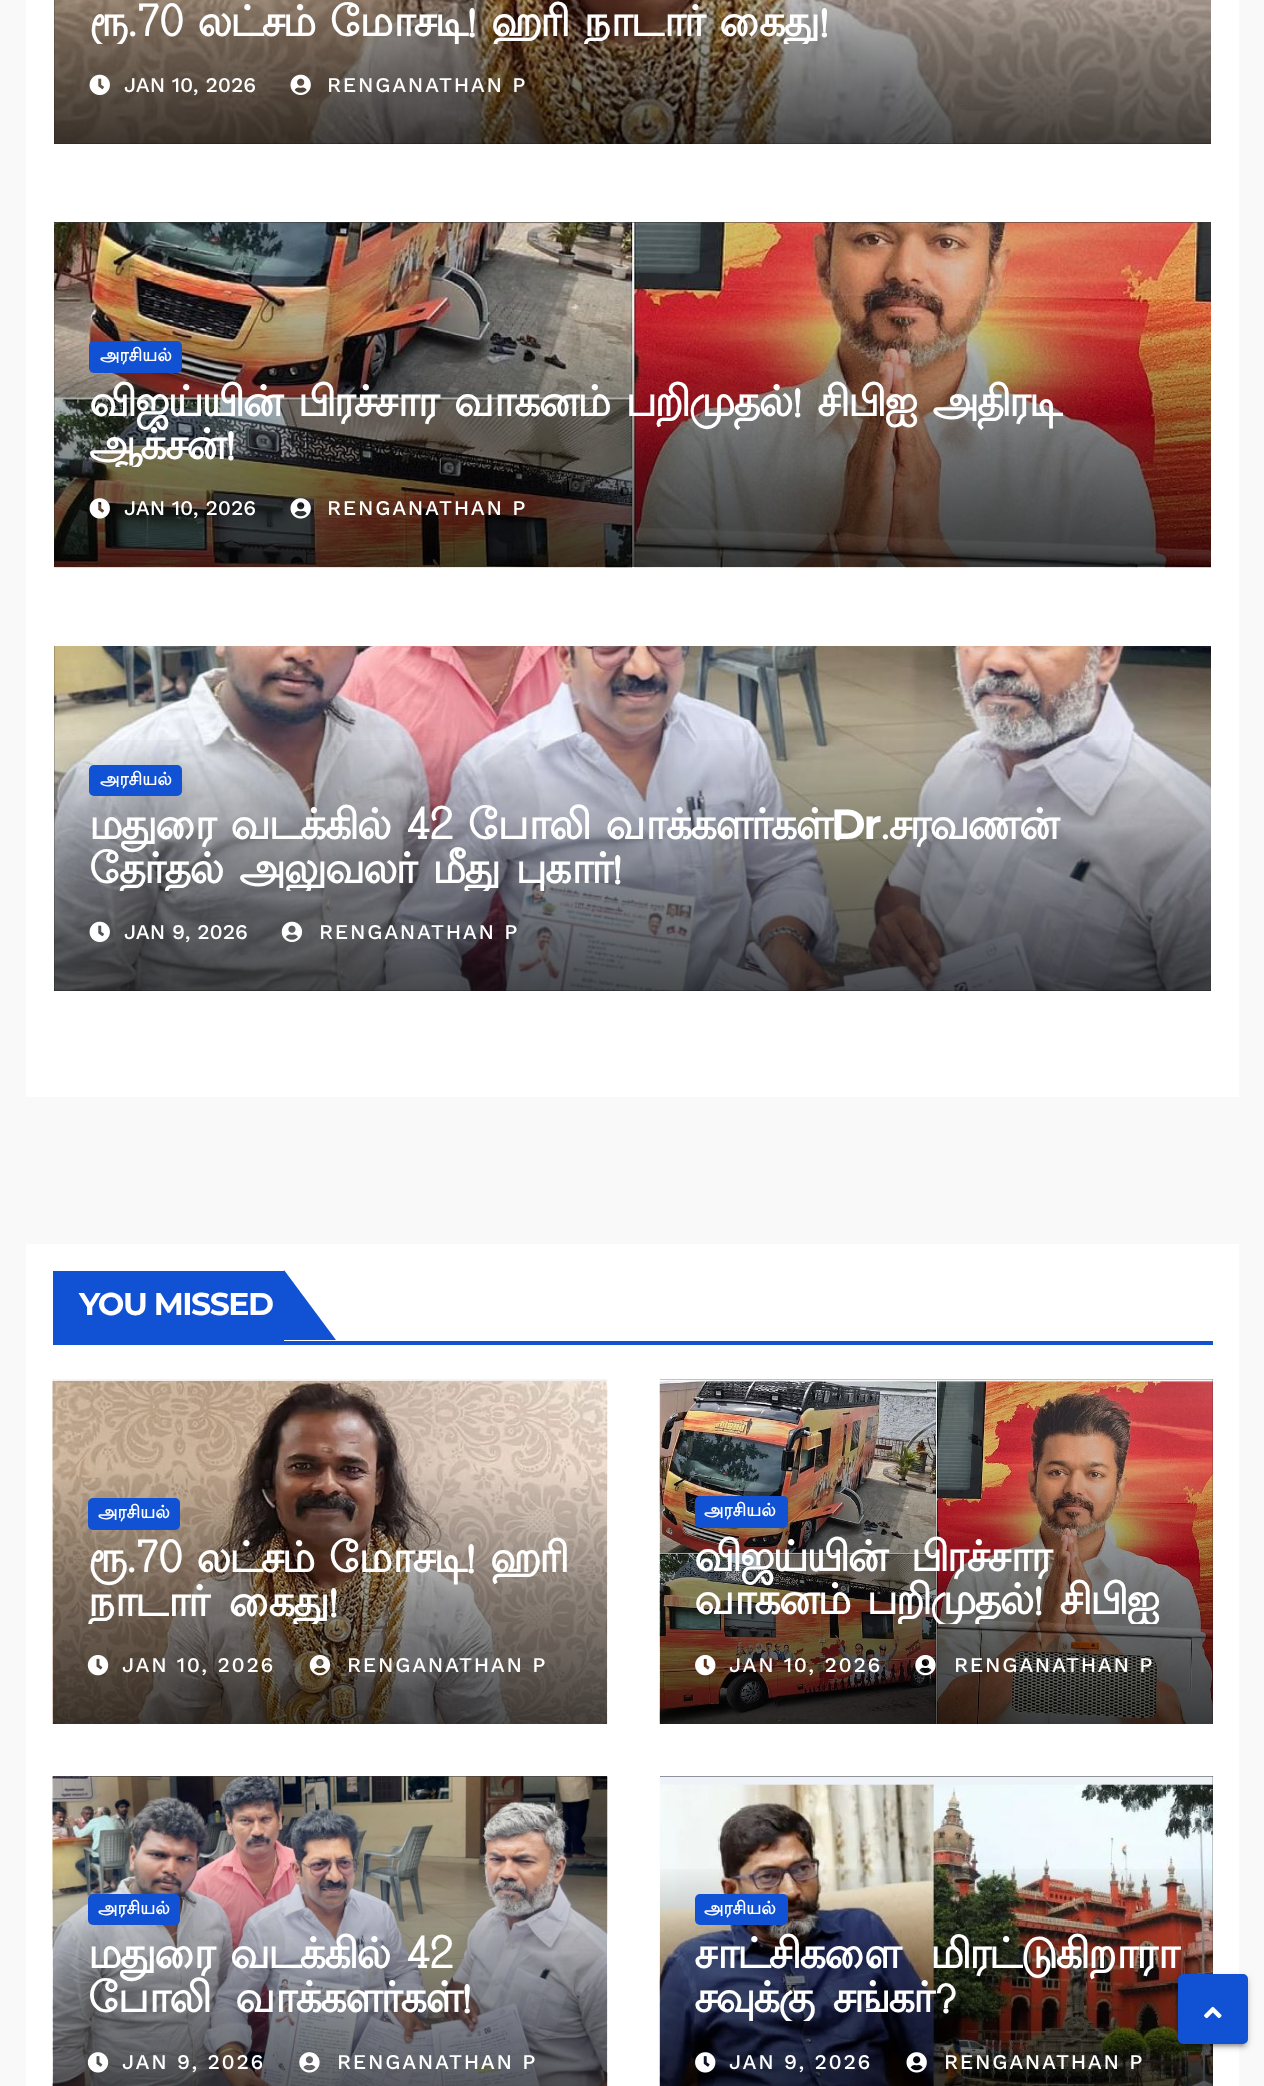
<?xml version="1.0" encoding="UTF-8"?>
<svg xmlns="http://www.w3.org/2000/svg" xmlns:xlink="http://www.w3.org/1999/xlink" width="1264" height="2086">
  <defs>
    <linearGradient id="g1" gradientUnits="userSpaceOnUse" x1="633" y1="-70" x2="633" y2="144"><stop offset="0" stop-color="#000000" stop-opacity="0" /><stop offset="0.5" stop-color="#000000" stop-opacity="0.4" /><stop offset="1" stop-color="#000000" stop-opacity="0.7" /></linearGradient>
    <linearGradient id="g2" gradientUnits="userSpaceOnUse" x1="633" y1="310" x2="633" y2="567"><stop offset="0" stop-color="#000000" stop-opacity="0" /><stop offset="0.5" stop-color="#000000" stop-opacity="0.4" /><stop offset="1" stop-color="#000000" stop-opacity="0.7" /></linearGradient>
    <linearGradient id="g3" gradientUnits="userSpaceOnUse" x1="633" y1="733" x2="633" y2="991"><stop offset="0" stop-color="#000000" stop-opacity="0" /><stop offset="0.5" stop-color="#000000" stop-opacity="0.4" /><stop offset="1" stop-color="#000000" stop-opacity="0.7" /></linearGradient>
    <linearGradient id="g4" gradientUnits="userSpaceOnUse" x1="936" y1="1465" x2="936" y2="1724"><stop offset="0" stop-color="#000000" stop-opacity="0" /><stop offset="0.5" stop-color="#000000" stop-opacity="0.4" /><stop offset="1" stop-color="#000000" stop-opacity="0.7" /></linearGradient>
    <linearGradient id="g5" gradientUnits="userSpaceOnUse" x1="936" y1="1862" x2="936" y2="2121"><stop offset="0" stop-color="#000000" stop-opacity="0" /><stop offset="0.5" stop-color="#000000" stop-opacity="0.4" /><stop offset="1" stop-color="#000000" stop-opacity="0.7" /></linearGradient>
    <clipPath id="clip1"><rect x="89" width="1087" height="44" /></clipPath>
    <clipPath id="clip2"><rect x="89" y="380" width="1087" height="87" /></clipPath>
    <clipPath id="clip3"><rect x="89" y="803" width="1087" height="88" /></clipPath>
    <clipPath id="clip4"><rect x="88" y="1537" width="484" height="87" /></clipPath>
    <clipPath id="clip5"><rect x="695" y="1535" width="483" height="89" /></clipPath>
    <clipPath id="clip6"><rect x="695" y="1932" width="483" height="89" /></clipPath>
  </defs>
  <rect width="100%" height="100%" fill="#f9f9f9" />
  <rect x="26" width="1213" height="1097" fill="#ffffff" />
  <rect x="54" width="1157" height="144" fill="#333333" />
  <image x="54" y="0" width="1157" height="144" xlink:href="image1.png" />
  <rect x="54" width="1157" height="144" fill="url(#g1)" />
  <image x="89" y="74" width="21" height="21" xlink:href="image2.png" />
  <image x="290" y="74" width="21" height="21" xlink:href="image3.png" />
  <rect x="54" y="222" width="1157" height="345" fill="#333333" />
  <image x="54" y="222" width="1157" height="346" xlink:href="image4.png" />
  <rect x="54" y="317" width="1157" height="250" fill="url(#g2)" />
  <rect x="89" y="341" width="93" height="32" rx="5" fill="#1151d3" />
  <image x="89" y="498" width="21" height="21" xlink:href="image5.png" />
  <image x="290" y="498" width="21" height="21" xlink:href="image6.png" />
  <rect x="54" y="646" width="1157" height="345" fill="#333333" />
  <image x="54" y="646" width="1157" height="345" xlink:href="image7.png" />
  <rect x="54" y="740" width="1157" height="251" fill="url(#g3)" />
  <rect x="89" y="765" width="93" height="31" rx="5" fill="#1151d3" />
  <image x="89" y="921" width="21" height="21" xlink:href="image8.png" />
  <image x="281" y="921" width="22" height="21" xlink:href="image9.png" />
  <rect x="26" y="1244" width="1213" height="842" fill="#ffffff" />
  <rect x="53" y="1341" width="1160" height="4" fill="#1151d3" />
  <rect x="53" y="1271" width="231" height="70" fill="#1151d3" />
  <path d="M 284 1340 v -70 l 52 70 z" fill="#1151d3" />
  <image x="52" y="1379" width="556" height="345" xlink:href="image10.png" />
  <rect x="88" y="1498" width="92" height="32" rx="5" fill="#1151d3" />
  <image x="87" y="1655" width="22" height="21" xlink:href="image11.png" />
  <image x="309" y="1655" width="22" height="21" xlink:href="image12.png" />
  <rect x="660" y="1379" width="553" height="345" fill="#333333" />
  <image x="659" y="1379" width="554" height="345" xlink:href="image13.png" />
  <rect x="660" y="1472" width="553" height="252" fill="url(#g4)" />
  <rect x="695" y="1496" width="93" height="32" rx="5" fill="#1151d3" />
  <image x="695" y="1655" width="21" height="21" xlink:href="image14.png" />
  <image x="915" y="1655" width="21" height="21" xlink:href="image15.png" />
  <rect x="53" y="1776" width="554" height="1" fill="#333333" />
  <image x="52" y="1776" width="556" height="310" xlink:href="image16.png" />
  <rect x="88" y="1894" width="92" height="31" rx="5" fill="#1151d3" />
  <image x="87" y="2052" width="22" height="21" xlink:href="image17.png" />
  <image x="299" y="2052" width="21" height="21" xlink:href="image18.png" />
  <rect x="660" y="1776" width="553" height="310" fill="#333333" />
  <image x="659" y="1776" width="554" height="310" xlink:href="image19.png" />
  <rect x="660" y="1869" width="553" height="217" fill="url(#g5)" />
  <rect x="695" y="1894" width="93" height="31" rx="5" fill="#1151d3" />
  <image x="695" y="2052" width="21" height="21" xlink:href="image20.png" />
  <image x="906" y="2052" width="21" height="21" xlink:href="image21.png" />
  <rect x="1178" y="1976" width="70" height="70" rx="5" fill="#000000" fill-opacity="0.12" filter="blur(4.5px)" />
  <rect x="1181" y="1983" width="63" height="63" rx="2" fill="#000000" fill-opacity="0.2" filter="blur(1px)" />
  <rect x="1178" y="1978" width="70" height="70" rx="5" fill="#000000" fill-opacity="0.14" filter="blur(2px)" />
  <rect x="1180" y="1976" width="66" height="66" rx="3" fill="#1151d3" stroke="#1151d3" stroke-width="4" />
  <image x="1204" y="2006" width="18" height="13" xlink:href="image22.png" />
  <g clip-path="url(#clip1)">
    <text x="89" y="36" word-spacing="5" style="font-family: Lohit Tamil; font-size: 42px; font-weight: bold; letter-spacing: -2.1px; fill: #ffffff">ரூ.70 லட்சம் மோசடி! ஹரி நாடார் கைது!</text>
  </g>
  <text x="124" y="92" style="font-family: Work Sans; font-size: 21px; font-weight: 500; fill: #ffffff">JAN 10, 2026</text>
  <text x="327" y="92" style="font-family: Work Sans; font-size: 21px; font-weight: 500; letter-spacing: 1.75px; fill: #ffffff">RENGANATHAN P</text>
  <text x="100" y="361" style="font-family: Lohit Tamil; font-size: 17.5px; font-weight: bold; fill: #ffffff">அரசியல்</text>
  <text x="89" y="416" word-spacing="6" style="font-family: Lohit Tamil; font-size: 42px; font-weight: bold; letter-spacing: -2.1px; fill: #ffffff">விஜய்யின் பிரச்சார வாகனம் பறிமுதல்! சிபிஐ அதிரடி</text>
  <g clip-path="url(#clip2)">
    <text x="89" y="459" style="font-family: Lohit Tamil; font-size: 42px; font-weight: bold; letter-spacing: -2.1px; fill: #ffffff">ஆக்சன்!</text>
  </g>
  <text x="124" y="515" style="font-family: Work Sans; font-size: 21px; font-weight: 500; fill: #ffffff">JAN 10, 2026</text>
  <text x="327" y="515" style="font-family: Work Sans; font-size: 21px; font-weight: 500; letter-spacing: 1.75px; fill: #ffffff">RENGANATHAN P</text>
  <text x="100" y="785" style="font-family: Lohit Tamil; font-size: 17.5px; font-weight: bold; fill: #ffffff">அரசியல்</text>
  <text x="89" y="839" word-spacing="5.5" style="font-family: Lohit Tamil; font-size: 42px; font-weight: bold; letter-spacing: -2.1px; fill: #ffffff">மதுரை வடக்கில் 42 போலி வாக்களர்கள்!</text>
  <text x="831" y="839" style="font-family: Montserrat; font-size: 42px; font-weight: bold; letter-spacing: -2.1px; fill: #ffffff">Dr</text>
  <text x="879" y="839" style="font-family: Lohit Tamil; font-size: 42px; font-weight: bold; letter-spacing: -2.1px; fill: #ffffff">.சரவணன்</text>
  <g clip-path="url(#clip3)">
    <text x="89" y="883" word-spacing="6.5" style="font-family: Lohit Tamil; font-size: 42px; font-weight: bold; letter-spacing: -2.1px; fill: #ffffff">தேர்தல் அலுவலர் மீது புகார்!</text>
  </g>
  <text x="124" y="939" style="font-family: Work Sans; font-size: 21px; font-weight: 500; fill: #ffffff">JAN 9, 2026</text>
  <text x="319" y="939" style="font-family: Work Sans; font-size: 21px; font-weight: 500; letter-spacing: 1.75px; fill: #ffffff">RENGANATHAN P</text>
  <text x="79" y="1315" style="font-family: Montserrat; font-size: 31.5px; font-weight: bold; letter-spacing: -1.5px; fill: #ffffff">YOU MISSED</text>
  <text x="98" y="1518" style="font-family: Lohit Tamil; font-size: 17.5px; font-weight: bold; fill: #ffffff">அரசியல்</text>
  <text x="88" y="1572" word-spacing="5" style="font-family: Lohit Tamil; font-size: 42px; font-weight: bold; letter-spacing: -2.1px; fill: #ffffff">ரூ.70 லட்சம் மோசடி! ஹரி</text>
  <g clip-path="url(#clip4)">
    <text x="88" y="1616" word-spacing="10" style="font-family: Lohit Tamil; font-size: 42px; font-weight: bold; letter-spacing: -2.1px; fill: #ffffff">நாடார் கைது!</text>
  </g>
  <text x="122" y="1672" style="font-family: Work Sans; font-size: 21px; font-weight: 500; letter-spacing: 1.75px; fill: #ffffff">JAN 10, 2026</text>
  <text x="347" y="1672" style="font-family: Work Sans; font-size: 21px; font-weight: 500; letter-spacing: 1.75px; fill: #ffffff">RENGANATHAN P</text>
  <text x="704" y="1516" style="font-family: Lohit Tamil; font-size: 17.5px; font-weight: bold; fill: #ffffff">அரசியல்</text>
  <text x="694" y="1571" word-spacing="14" style="font-family: Lohit Tamil; font-size: 42px; font-weight: bold; letter-spacing: -2.1px; fill: #ffffff">விஜய்யின் பிரச்சார</text>
  <g clip-path="url(#clip5)">
    <text x="694" y="1614" word-spacing="7" style="font-family: Lohit Tamil; font-size: 42px; font-weight: bold; letter-spacing: -2.1px; fill: #ffffff">வாகனம் பறிமுதல்! சிபிஐ</text>
  </g>
  <text x="729" y="1672" style="font-family: Work Sans; font-size: 21px; font-weight: 500; letter-spacing: 1.75px; fill: #ffffff">JAN 10, 2026</text>
  <text x="954" y="1672" style="font-family: Work Sans; font-size: 21px; font-weight: 500; letter-spacing: 1.75px; fill: #ffffff">RENGANATHAN P</text>
  <text x="98" y="1914" style="font-family: Lohit Tamil; font-size: 17.5px; font-weight: bold; fill: #ffffff">அரசியல்</text>
  <text x="88" y="1968" word-spacing="6" style="font-family: Lohit Tamil; font-size: 42px; font-weight: bold; letter-spacing: -2.1px; fill: #ffffff">மதுரை வடக்கில் 42</text>
  <text x="88" y="2012" word-spacing="15" style="font-family: Lohit Tamil; font-size: 42px; font-weight: bold; letter-spacing: -2.1px; fill: #ffffff">போலி வாக்களர்கள்!</text>
  <text x="122" y="2069" style="font-family: Work Sans; font-size: 21px; font-weight: 500; letter-spacing: 1.75px; fill: #ffffff">JAN 9, 2026</text>
  <text x="337" y="2069" style="font-family: Work Sans; font-size: 21px; font-weight: 500; letter-spacing: 1.75px; fill: #ffffff">RENGANATHAN P</text>
  <text x="704" y="1914" style="font-family: Lohit Tamil; font-size: 17.5px; font-weight: bold; fill: #ffffff">அரசியல்</text>
  <text x="694" y="1968" word-spacing="20" style="font-family: Lohit Tamil; font-size: 42px; font-weight: bold; letter-spacing: -2.1px; fill: #ffffff">சாட்சிகளை மிரட்டுகிறாரா</text>
  <g clip-path="url(#clip6)">
    <text x="694" y="2012" word-spacing="9" style="font-family: Lohit Tamil; font-size: 42px; font-weight: bold; letter-spacing: -2.1px; fill: #ffffff">சவுக்கு சங்கர்?</text>
  </g>
  <text x="729" y="2069" style="font-family: Work Sans; font-size: 21px; font-weight: 500; letter-spacing: 1.75px; fill: #ffffff">JAN 9, 2026</text>
  <text x="944" y="2069" style="font-family: Work Sans; font-size: 21px; font-weight: 500; letter-spacing: 1.75px; fill: #ffffff">RENGANATHAN P</text>
</svg>
